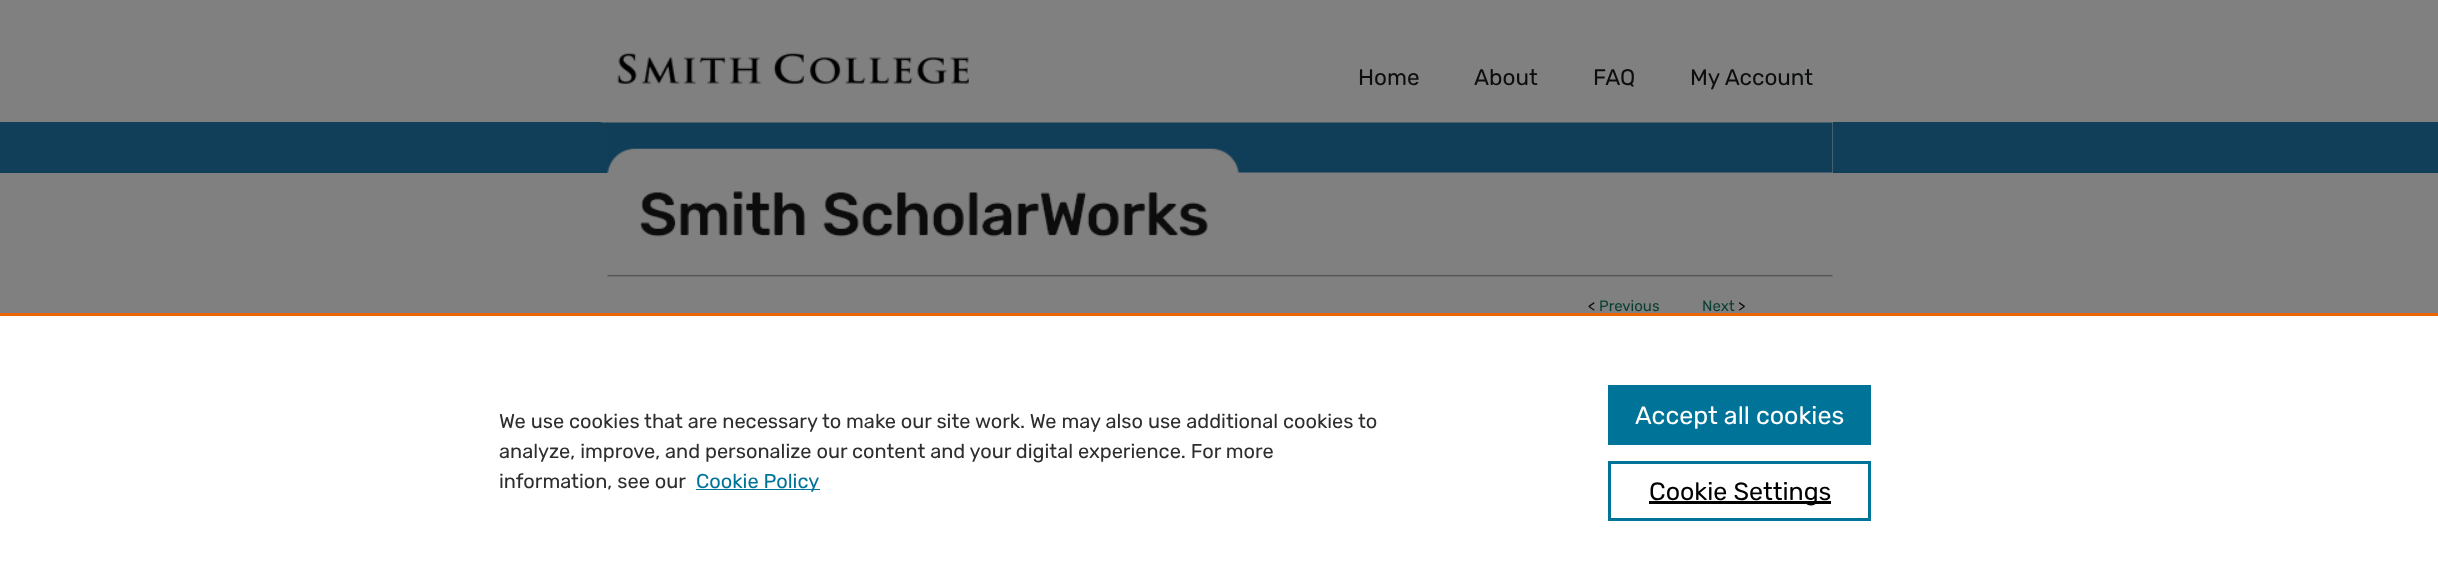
<?xml version="1.0" encoding="UTF-8"?>
<svg xmlns="http://www.w3.org/2000/svg" xmlns:xlink="http://www.w3.org/1999/xlink" width="2438" height="587">
  <rect width="100%" height="100%" fill="#808080" />
  <rect y="122" width="2438" height="51" fill="#113e58" />
  <rect x="608" y="122" width="1225" height="51" fill="#808080" />
  <image x="601" y="52" width="368" height="71" xlink:href="image1.png" />
  <image x="607" y="122" width="1226" height="155" xlink:href="image2.png" />
  <rect y="316" width="2438" height="271" fill="#ffffff" />
  <rect y="313" width="2438" height="3" fill="#eb6500" />
  <rect x="696" y="489" width="124" height="1" fill="#007398" />
  <rect x="1608" y="385" width="263" height="60" fill="#007398" />
  <rect x="1609.5" y="462.5" width="260" height="57" fill="none" stroke="#007398" stroke-width="3" />
  <rect x="1649" y="501" width="182" height="3" fill="#000000" />
  <text x="1358" y="85" style="font-family: Rubik; font-size: 22.5px; fill: #0c0d0e">Home</text>
  <text x="1474" y="85" style="font-family: Rubik; font-size: 22.5px; fill: #0c0d0e">About</text>
  <text x="1593" y="85" style="font-family: Rubik; font-size: 22.5px; fill: #0c0d0e">FAQ</text>
  <text x="1690" y="85" style="font-family: Rubik; font-size: 22.5px; fill: #0c0d0e">My Account</text>
  <text x="1588" y="311" style="font-family: Rubik; font-size: 15px; fill: #0c0d0e">&lt;</text>
  <text x="1599" y="311" style="font-family: Rubik; font-size: 15px; fill: #083f31">Previous</text>
  <text x="1702" y="311" style="font-family: Rubik; font-size: 15px; fill: #083f31">Next</text>
  <text x="1738" y="311" style="font-family: Rubik; font-size: 15px; fill: #0c0d0e">&gt;</text>
  <text x="499" y="428" style="font-family: Rubik; font-size: 20px; fill: #2e2e2e">We use cookies that are necessary to make our site work. We may also use additional cookies to</text>
  <text x="499" y="458" style="font-family: Rubik; font-size: 20px; fill: #2e2e2e">analyze, improve, and personalize our content and your digital experience. For more</text>
  <text x="499" y="488" style="font-family: Rubik; font-size: 20px; fill: #2e2e2e">information, see our</text>
  <text x="696" y="488" style="font-family: Rubik; font-size: 20px; fill: #007398">Cookie Policy</text>
  <text x="1635" y="424" style="font-family: Rubik; font-size: 25px; fill: #ffffff">Accept all cookies</text>
  <text x="1649" y="500" style="font-family: Rubik; font-size: 25px; fill: #000000">Cookie Settings</text>
</svg>
